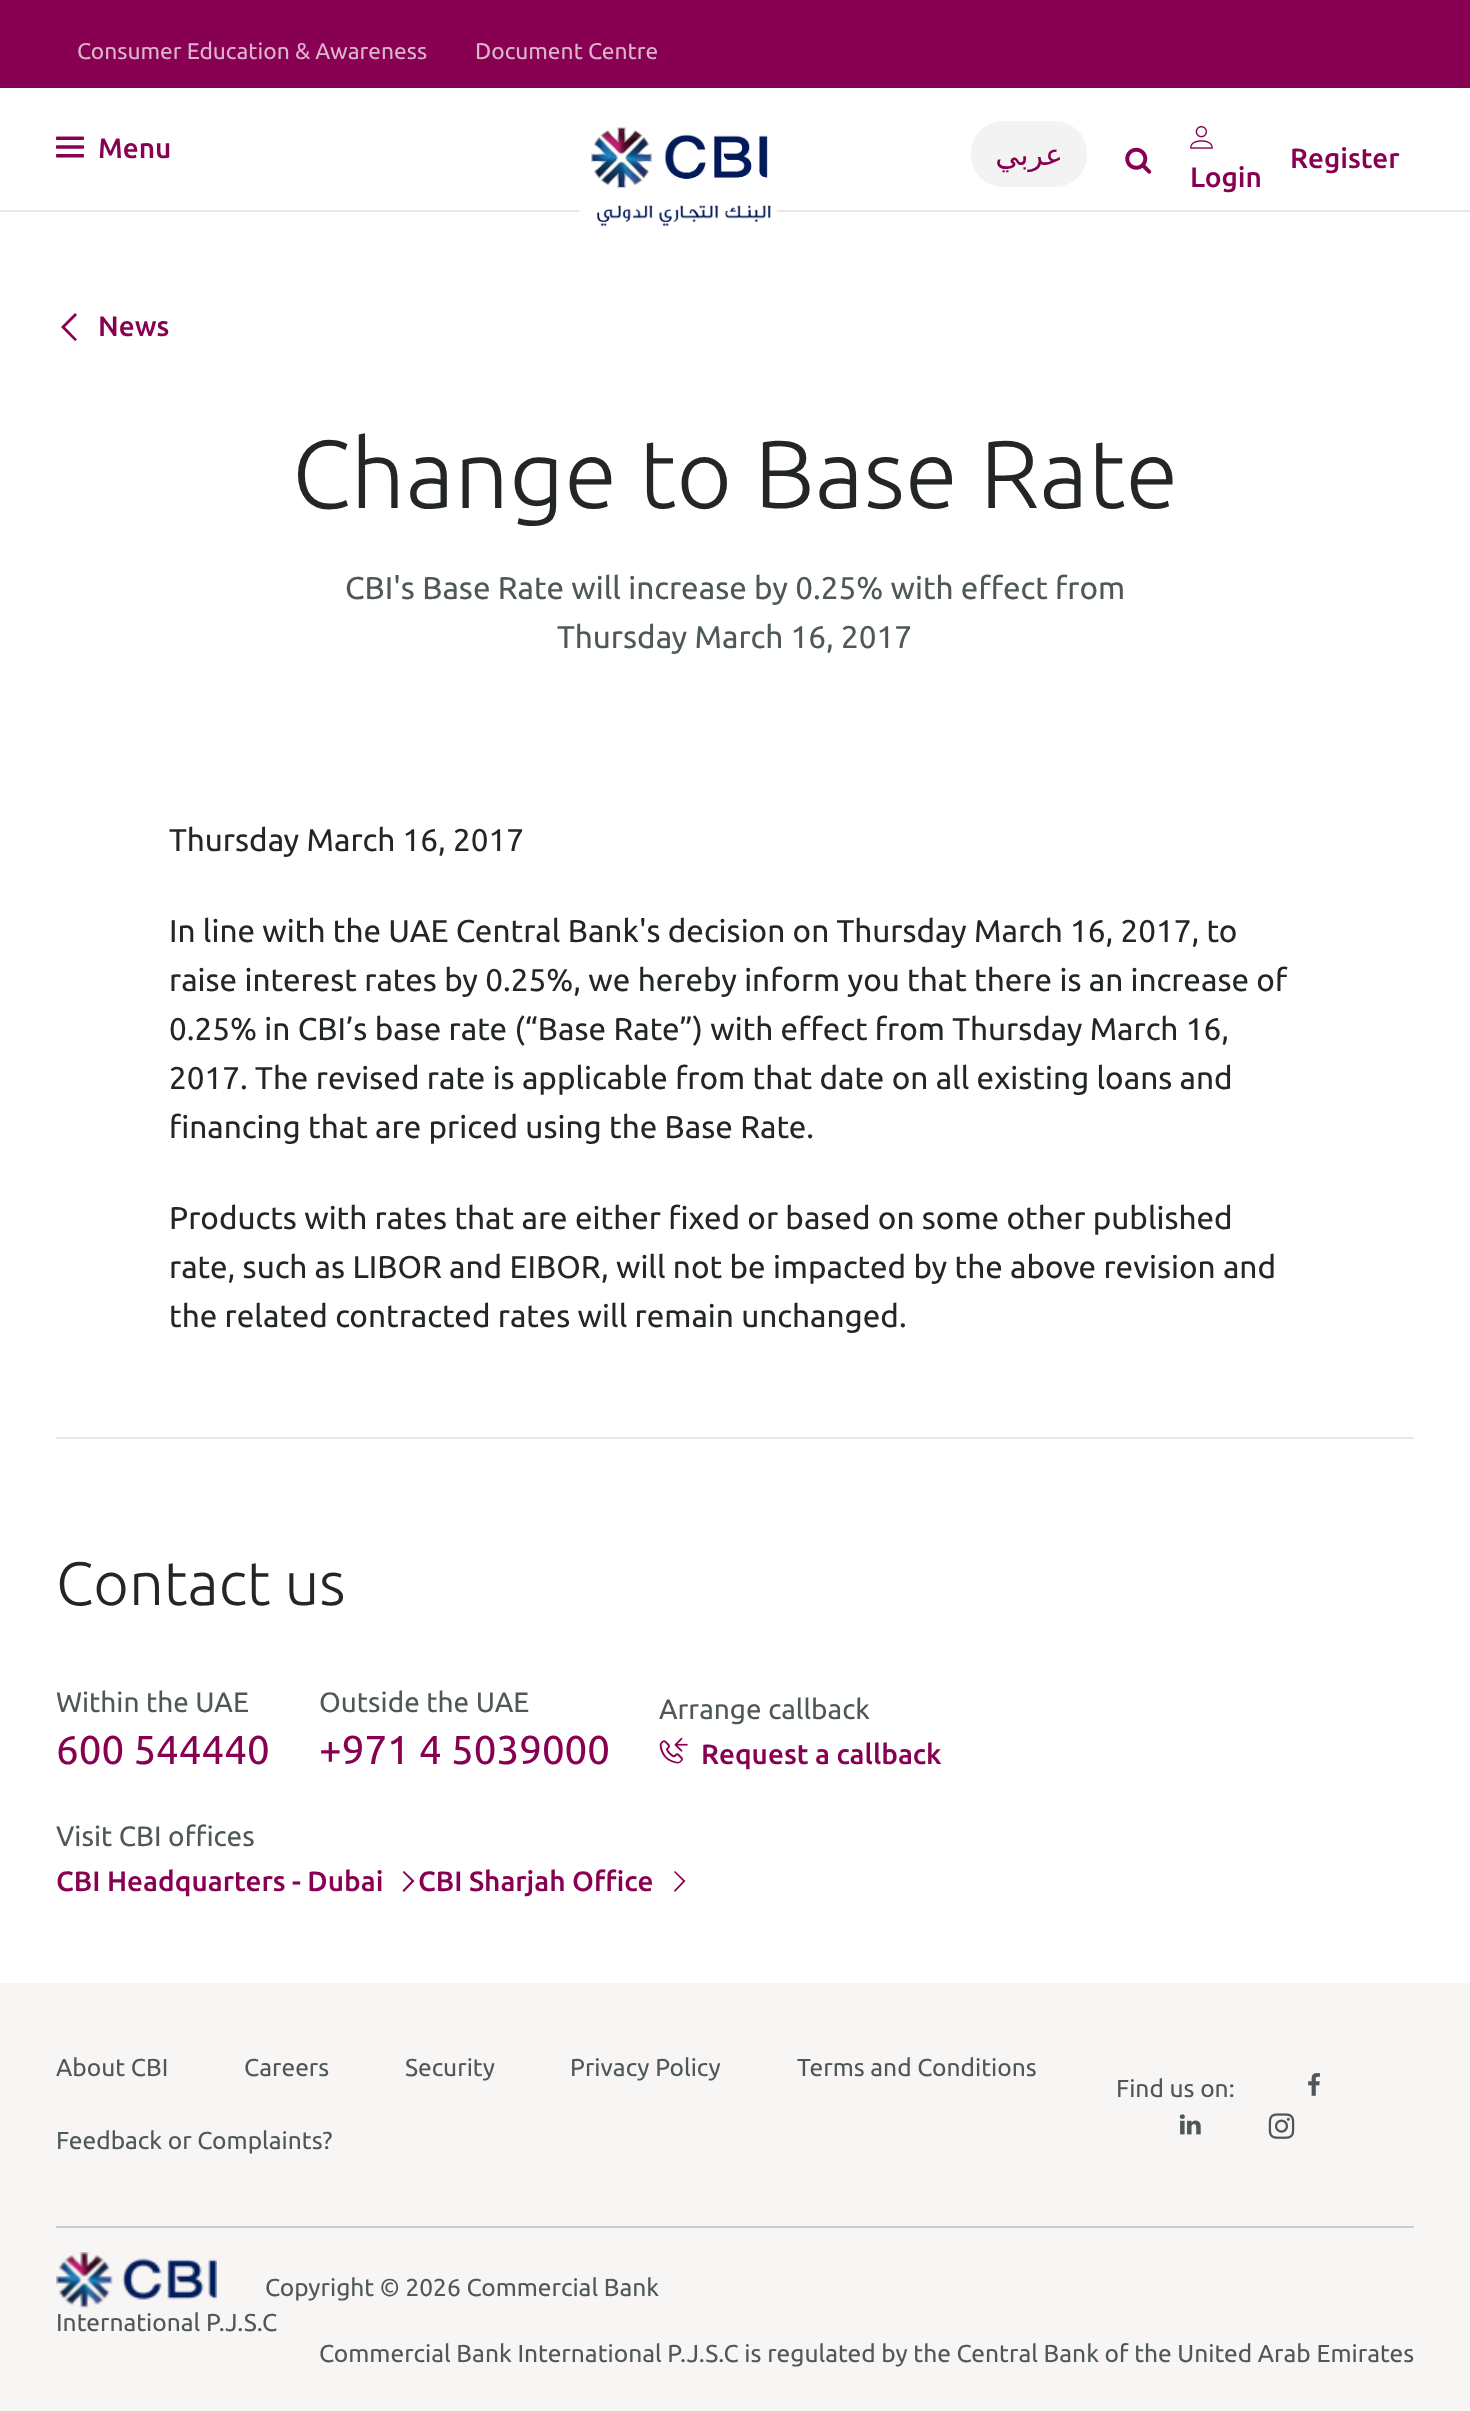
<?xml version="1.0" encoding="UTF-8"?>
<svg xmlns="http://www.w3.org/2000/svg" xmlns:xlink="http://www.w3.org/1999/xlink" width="1470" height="2411">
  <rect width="100%" height="100%" fill="#ffffff" />
  <rect width="1470" height="88" fill="#870051" />
  <rect y="210" width="1470" height="2" fill="#eae6e4" />
  <image x="56" y="136" width="28" height="22" xlink:href="image1.png" />
  <image x="579" y="126" width="198" height="101" xlink:href="image2.png" />
  <rect x="971" y="121" width="116" height="66" rx="32" fill="#f3f3f3" />
  <image x="1125" y="147" width="27" height="27" xlink:href="image3.png" />
  <image x="1190" y="126" width="23" height="23" xlink:href="image4.png" />
  <path d="M 77 315 l -12 12 l 12 12.5 l -2 1.5 l -14 -14 l 14 -14 z" fill="#870051" />
  <rect x="56" y="1437" width="1358" height="2" fill="#eae6e4" />
  <image x="659" y="1737" width="29" height="27" xlink:href="image5.png" />
  <path d="M 404 1871 l 10.5 10 l -10.5 11 l -1.5 -1.5 l 9 -9.5 l -9 -9 z" fill="#870051" />
  <path d="M 675 1871 l 10.5 10 l -10.5 11 l -1 -1.5 l 9 -9.5 l -9 -9 z" fill="#870051" />
  <rect y="1983" width="1470" height="428" fill="#f8f5f5" />
  <image x="1308" y="2073" width="12" height="23" xlink:href="image6.png" />
  <image x="1179" y="2114" width="22" height="21" xlink:href="image7.png" />
  <image x="1268" y="2113" width="27" height="26" xlink:href="image8.png" />
  <rect x="56" y="2226" width="1358" height="2" fill="#cccccc" />
  <image x="56" y="2252" width="161" height="56" xlink:href="image9.png" />
  <text x="77" y="59" style="font-family: Ubuntu; font-size: 22.75px; fill: #dbb3cb">Consumer Education &amp; Awareness</text>
  <text x="475" y="59" style="font-family: Ubuntu; font-size: 22.75px; fill: #dbb3cb">Document Centre</text>
  <text x="98" y="158" style="font-family: Ubuntu; font-size: 28px; font-weight: 500; fill: #870051">Menu</text>
  <text x="1063" y="165" style="font-family: DejaVu Sans; font-size: 30px; direction: rtl; fill: #870051">عربي</text>
  <text x="1290" y="168" style="font-family: Ubuntu; font-size: 28px; font-weight: 500; fill: #870051">Register</text>
  <text x="1190" y="187" style="font-family: Ubuntu; font-size: 28px; font-weight: 500; fill: #870051">Login</text>
  <text x="98" y="336" style="font-family: Ubuntu; font-size: 28px; font-weight: 500; fill: #870051">News</text>
  <text x="292" y="508" style="font-family: Ubuntu; font-size: 96.25px; font-weight: 300; fill: #222626">Change to Base Rate</text>
  <text x="345" y="599" style="font-family: Ubuntu; font-size: 31.5px; fill: #4f5858">CBI's Base Rate will increase by 0.25% with effect from</text>
  <text x="557" y="648" style="font-family: Ubuntu; font-size: 31.5px; fill: #4f5858">Thursday March 16, 2017</text>
  <text x="169" y="851" style="font-family: Ubuntu; font-size: 31.5px; fill: #222626">Thursday March 16, 2017</text>
  <text x="169" y="942" style="font-family: Ubuntu; font-size: 31.5px; fill: #222626">In line with the UAE Central Bank's decision on Thursday March 16, 2017, to</text>
  <text x="169" y="991" style="font-family: Ubuntu; font-size: 31.5px; fill: #222626">raise interest rates by 0.25%, we hereby inform you that there is an increase of</text>
  <text x="169" y="1040" style="font-family: Ubuntu; font-size: 31.5px; fill: #222626">0.25% in CBI’s base rate (“Base Rate”) with effect from Thursday March 16,</text>
  <text x="169" y="1089" style="font-family: Ubuntu; font-size: 31.5px; fill: #222626">2017. The revised rate is applicable from that date on all existing loans and</text>
  <text x="169" y="1138" style="font-family: Ubuntu; font-size: 31.5px; fill: #222626">financing that are priced using the Base Rate.</text>
  <text x="169" y="1229" style="font-family: Ubuntu; font-size: 31.5px; fill: #222626">Products with rates that are either fixed or based on some other published</text>
  <text x="169" y="1278" style="font-family: Ubuntu; font-size: 31.5px; fill: #222626">rate, such as LIBOR and EIBOR, will not be impacted by the above revision and</text>
  <text x="169" y="1327" style="font-family: Ubuntu; font-size: 31.5px; fill: #222626">the related contracted rates will remain unchanged.</text>
  <text x="56" y="1605" style="font-family: Ubuntu; font-size: 61.25px; font-weight: 300; fill: #222626">Contact us</text>
  <text x="56" y="1712" style="font-family: Ubuntu; font-size: 28px; fill: #4f5858">Within the UAE</text>
  <text x="56" y="1764" style="font-family: Ubuntu; font-size: 40.25px; fill: #870051">600 544440</text>
  <text x="319" y="1712" style="font-family: Ubuntu; font-size: 28px; fill: #4f5858">Outside the UAE</text>
  <text x="319" y="1764" style="font-family: Ubuntu; font-size: 40.25px; fill: #870051">+971 4 5039000</text>
  <text x="659" y="1719" style="font-family: Ubuntu; font-size: 28px; fill: #4f5858">Arrange callback</text>
  <text x="701" y="1764" style="font-family: Ubuntu; font-size: 28px; font-weight: 500; fill: #870051">Request a callback</text>
  <text x="56" y="1846" style="font-family: Ubuntu; font-size: 28px; fill: #4f5858">Visit CBI offices</text>
  <text x="56" y="1891" style="font-family: Ubuntu; font-size: 28px; font-weight: 500; fill: #870051">CBI Headquarters - Dubai</text>
  <text x="418" y="1891" style="font-family: Ubuntu; font-size: 28px; font-weight: 500; fill: #870051">CBI Sharjah Office</text>
  <text x="56" y="2076" style="font-family: Ubuntu; font-size: 24.5px; fill: #4f5858">About CBI</text>
  <text x="244" y="2076" style="font-family: Ubuntu; font-size: 24.5px; fill: #4f5858">Careers</text>
  <text x="405" y="2076" style="font-family: Ubuntu; font-size: 24.5px; fill: #4f5858">Security</text>
  <text x="570" y="2076" style="font-family: Ubuntu; font-size: 24.5px; fill: #4f5858">Privacy Policy</text>
  <text x="797" y="2076" style="font-family: Ubuntu; font-size: 24.5px; fill: #4f5858">Terms and Conditions</text>
  <text x="56" y="2149" style="font-family: Ubuntu; font-size: 24.5px; fill: #4f5858">Feedback or Complaints?</text>
  <text x="1116" y="2097" style="font-family: Ubuntu; font-size: 24.5px; fill: #4f5858">Find us on:</text>
  <text x="265" y="2296" style="font-family: Ubuntu; font-size: 24.5px; fill: #4f5858">Copyright © 2026 Commercial Bank</text>
  <text x="56" y="2331" style="font-family: Ubuntu; font-size: 24.5px; fill: #4f5858">International P.J.S.C</text>
  <text x="319" y="2362" style="font-family: Ubuntu; font-size: 24.5px; fill: #4f5858">Commercial Bank International P.J.S.C is regulated by the Central Bank of the United Arab Emirates</text>
</svg>
